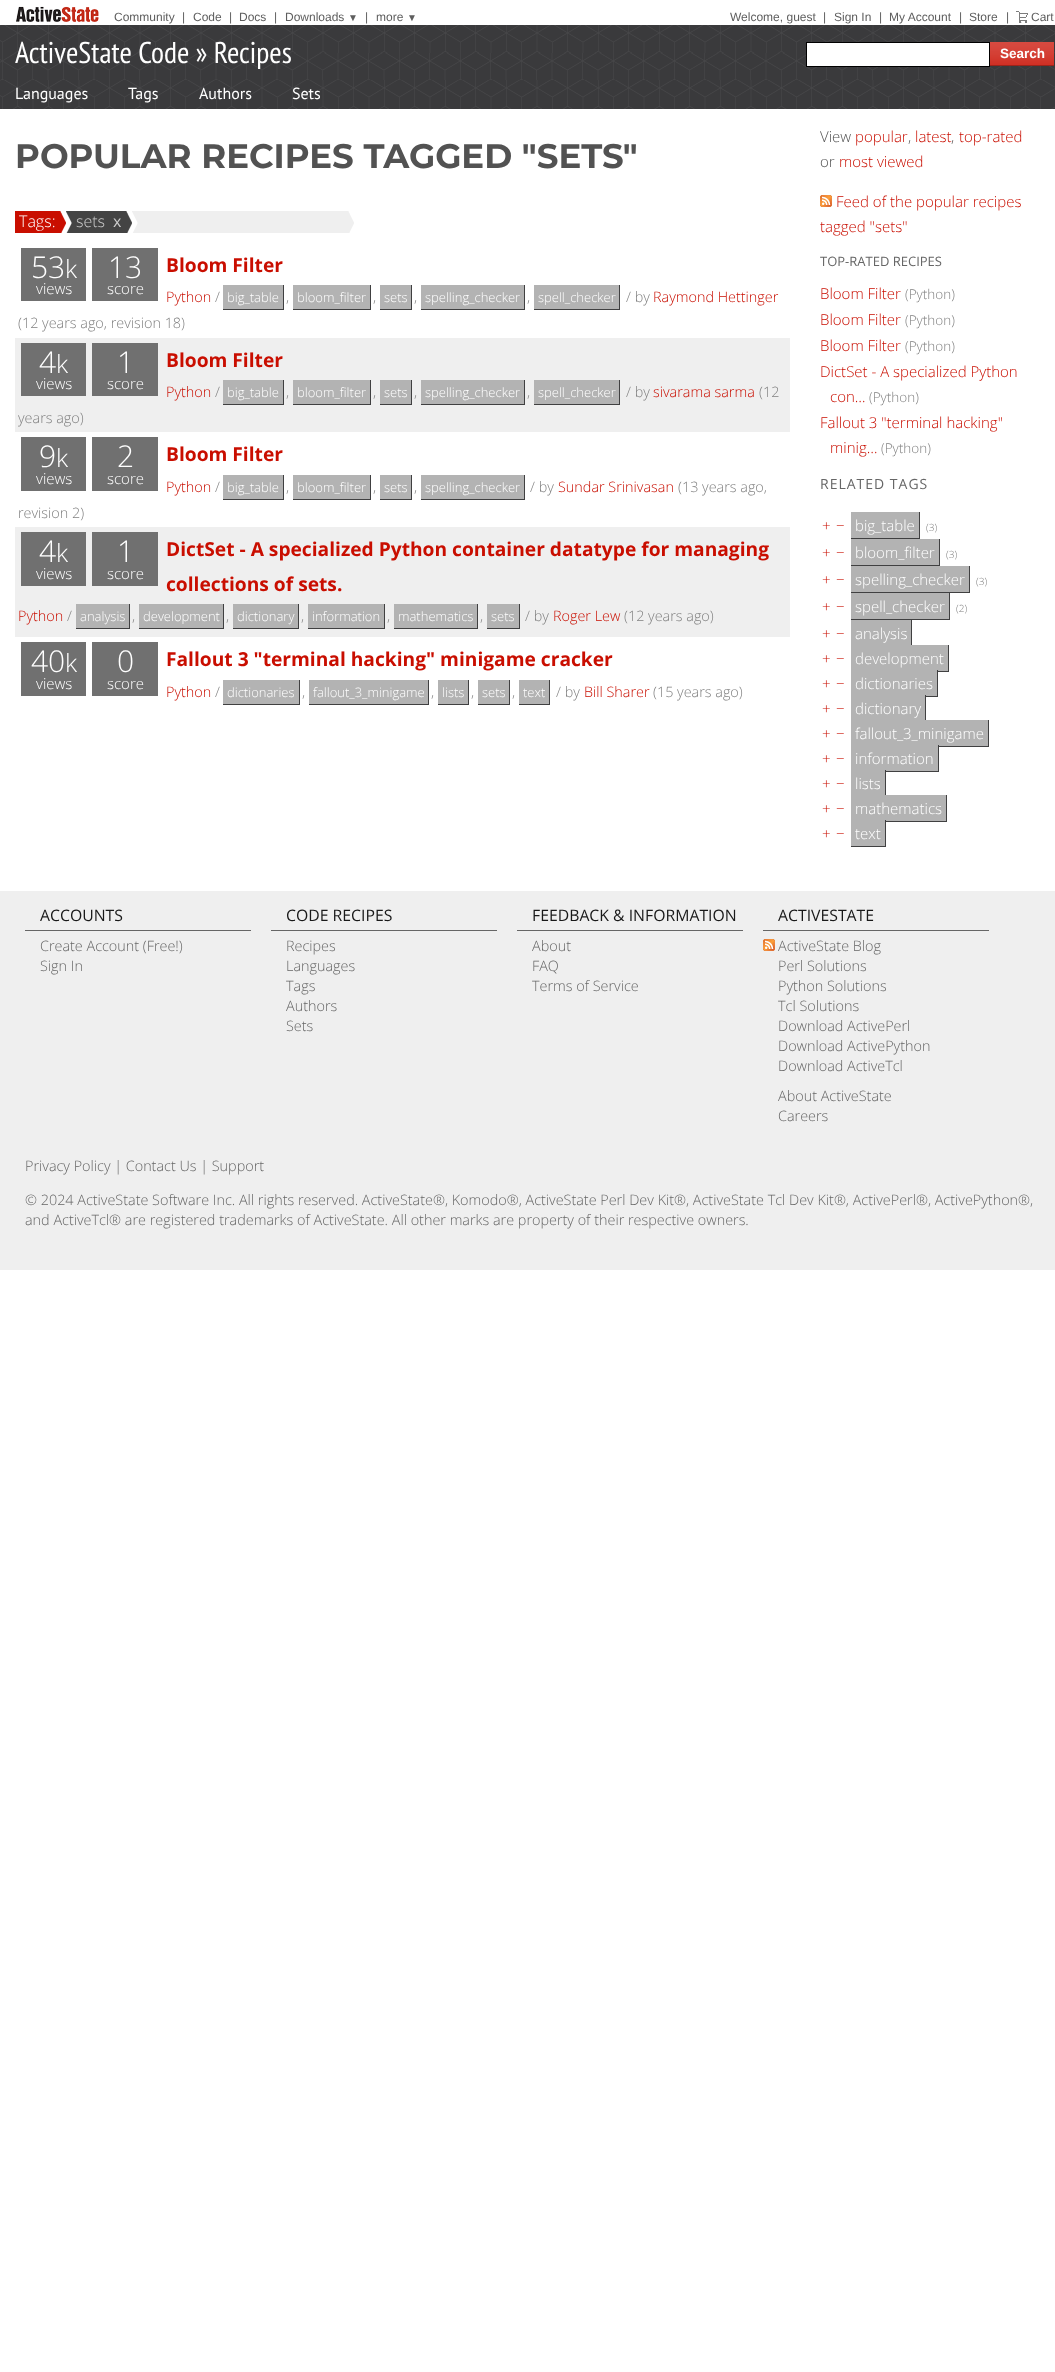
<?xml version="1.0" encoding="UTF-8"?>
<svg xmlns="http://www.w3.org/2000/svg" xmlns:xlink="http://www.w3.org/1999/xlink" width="1055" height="2372">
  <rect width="100%" height="100%" fill="#ffffff" />
  <image x="0" y="25" width="1055" height="84" xlink:href="image1.png" />
  <image x="16" y="6" width="83" height="16" xlink:href="image2.png" />
  <image x="1016" y="11" width="12" height="12" xlink:href="image3.png" />
  <rect x="806.5" y="42.5" width="183" height="24" fill="#ffffff" stroke="#000000" />
  <rect x="990" y="42" width="64" height="23" fill="#c90e00" />
  <image x="990" y="42" width="64" height="23" xlink:href="image4.png" />
  <rect x="990" y="65" width="64" height="1" fill="#9c231a" />
  <rect x="15" y="211" width="51" height="22" fill="#c90e00" />
  <image x="60" y="211" width="6" height="22" xlink:href="image5.png" />
  <rect x="66" y="211" width="66" height="22" fill="#444444" />
  <image x="66" y="211" width="6" height="22" xlink:href="image6.png" />
  <image x="126" y="211" width="6" height="22" xlink:href="image7.png" />
  <rect x="132" y="211" width="222" height="22" fill="#efefef" />
  <image x="132" y="212" width="6" height="21" xlink:href="image8.png" />
  <image x="348" y="211" width="6" height="22" xlink:href="image9.png" />
  <rect x="21" y="248" width="65" height="53" fill="#707070" />
  <rect x="92" y="248" width="66" height="53" fill="#707070" />
  <rect x="223" y="285" width="60" height="24" fill="#b3b3b3" />
  <rect x="283" y="285" width="1" height="25" fill="#404041" />
  <rect x="223" y="309" width="61" height="1" fill="#404041" />
  <rect x="293" y="285" width="77" height="24" fill="#b3b3b3" />
  <rect x="370" y="285" width="1" height="25" fill="#404041" />
  <rect x="293" y="309" width="78" height="1" fill="#404041" />
  <rect x="380" y="285" width="31" height="24" fill="#b3b3b3" />
  <rect x="411" y="285" width="1" height="25" fill="#404041" />
  <rect x="380" y="309" width="32" height="1" fill="#404041" />
  <rect x="421" y="285" width="103" height="24" fill="#b3b3b3" />
  <rect x="524" y="285" width="1" height="25" fill="#404041" />
  <rect x="421" y="309" width="104" height="1" fill="#404041" />
  <rect x="534" y="285" width="85" height="24" fill="#b3b3b3" />
  <rect x="619" y="285" width="1" height="25" fill="#404041" />
  <rect x="534" y="309" width="86" height="1" fill="#404041" />
  <rect x="15" y="338" width="775" height="94" fill="#efefef" />
  <rect x="21" y="343" width="65" height="53" fill="#707070" />
  <rect x="92" y="343" width="66" height="53" fill="#707070" />
  <rect x="223" y="380" width="60" height="24" fill="#b3b3b3" />
  <rect x="283" y="380" width="1" height="25" fill="#404041" />
  <rect x="223" y="404" width="61" height="1" fill="#404041" />
  <rect x="293" y="380" width="77" height="24" fill="#b3b3b3" />
  <rect x="370" y="380" width="1" height="25" fill="#404041" />
  <rect x="293" y="404" width="78" height="1" fill="#404041" />
  <rect x="380" y="380" width="31" height="24" fill="#b3b3b3" />
  <rect x="411" y="380" width="1" height="25" fill="#404041" />
  <rect x="380" y="404" width="32" height="1" fill="#404041" />
  <rect x="421" y="380" width="103" height="24" fill="#b3b3b3" />
  <rect x="524" y="380" width="1" height="25" fill="#404041" />
  <rect x="421" y="404" width="104" height="1" fill="#404041" />
  <rect x="534" y="380" width="85" height="24" fill="#b3b3b3" />
  <rect x="619" y="380" width="1" height="25" fill="#404041" />
  <rect x="534" y="404" width="86" height="1" fill="#404041" />
  <rect x="21" y="437" width="65" height="54" fill="#707070" />
  <rect x="92" y="437" width="66" height="54" fill="#707070" />
  <rect x="223" y="475" width="60" height="24" fill="#b3b3b3" />
  <rect x="283" y="475" width="1" height="25" fill="#404041" />
  <rect x="223" y="499" width="61" height="1" fill="#404041" />
  <rect x="293" y="475" width="77" height="24" fill="#b3b3b3" />
  <rect x="370" y="475" width="1" height="25" fill="#404041" />
  <rect x="293" y="499" width="78" height="1" fill="#404041" />
  <rect x="380" y="475" width="31" height="24" fill="#b3b3b3" />
  <rect x="411" y="475" width="1" height="25" fill="#404041" />
  <rect x="380" y="499" width="32" height="1" fill="#404041" />
  <rect x="421" y="475" width="103" height="24" fill="#b3b3b3" />
  <rect x="524" y="475" width="1" height="25" fill="#404041" />
  <rect x="421" y="499" width="104" height="1" fill="#404041" />
  <rect x="15" y="527" width="775" height="110" fill="#efefef" />
  <rect x="21" y="532" width="65" height="54" fill="#707070" />
  <rect x="92" y="532" width="66" height="54" fill="#707070" />
  <rect x="76" y="604" width="53" height="24" fill="#b3b3b3" />
  <rect x="129" y="604" width="1" height="25" fill="#404041" />
  <rect x="76" y="628" width="54" height="1" fill="#404041" />
  <rect x="139" y="604" width="84" height="24" fill="#b3b3b3" />
  <rect x="223" y="604" width="1" height="25" fill="#404041" />
  <rect x="139" y="628" width="85" height="1" fill="#404041" />
  <rect x="233" y="604" width="65" height="24" fill="#b3b3b3" />
  <rect x="298" y="604" width="1" height="25" fill="#404041" />
  <rect x="233" y="628" width="66" height="1" fill="#404041" />
  <rect x="308" y="604" width="76" height="24" fill="#b3b3b3" />
  <rect x="384" y="604" width="1" height="25" fill="#404041" />
  <rect x="308" y="628" width="77" height="1" fill="#404041" />
  <rect x="394" y="604" width="83" height="24" fill="#b3b3b3" />
  <rect x="477" y="604" width="1" height="25" fill="#404041" />
  <rect x="394" y="628" width="84" height="1" fill="#404041" />
  <rect x="487" y="604" width="32" height="24" fill="#b3b3b3" />
  <rect x="519" y="604" width="1" height="25" fill="#404041" />
  <rect x="487" y="628" width="33" height="1" fill="#404041" />
  <rect x="21" y="642" width="65" height="54" fill="#707070" />
  <rect x="92" y="642" width="66" height="54" fill="#707070" />
  <rect x="223" y="680" width="76" height="24" fill="#b3b3b3" />
  <rect x="299" y="680" width="1" height="25" fill="#404041" />
  <rect x="223" y="704" width="77" height="1" fill="#404041" />
  <rect x="309" y="680" width="119" height="24" fill="#b3b3b3" />
  <rect x="428" y="680" width="1" height="25" fill="#404041" />
  <rect x="309" y="704" width="120" height="1" fill="#404041" />
  <rect x="438" y="680" width="30" height="24" fill="#b3b3b3" />
  <rect x="468" y="680" width="1" height="25" fill="#404041" />
  <rect x="438" y="704" width="31" height="1" fill="#404041" />
  <rect x="478" y="680" width="31" height="24" fill="#b3b3b3" />
  <rect x="509" y="680" width="1" height="25" fill="#404041" />
  <rect x="478" y="704" width="32" height="1" fill="#404041" />
  <rect x="519" y="680" width="30" height="24" fill="#b3b3b3" />
  <rect x="549" y="680" width="1" height="25" fill="#404041" />
  <rect x="519" y="704" width="31" height="1" fill="#404041" />
  <image x="820" y="195" width="12" height="12" xlink:href="image10.png" />
  <rect x="851" y="512" width="68" height="26" fill="#b3b3b3" />
  <rect x="919" y="512" width="1" height="27" fill="#404041" />
  <rect x="851" y="538" width="69" height="1" fill="#404041" />
  <rect x="851" y="539" width="88" height="26" fill="#b3b3b3" />
  <rect x="939" y="539" width="1" height="27" fill="#404041" />
  <rect x="851" y="565" width="89" height="1" fill="#404041" />
  <rect x="851" y="566" width="118" height="26" fill="#b3b3b3" />
  <rect x="969" y="566" width="1" height="27" fill="#404041" />
  <rect x="851" y="592" width="119" height="1" fill="#404041" />
  <rect x="851" y="593" width="98" height="26" fill="#b3b3b3" />
  <rect x="949" y="593" width="1" height="27" fill="#404041" />
  <rect x="851" y="619" width="99" height="1" fill="#404041" />
  <rect x="851" y="620" width="60" height="25" fill="#b3b3b3" />
  <rect x="911" y="620" width="1" height="27" fill="#404041" />
  <rect x="851" y="645" width="97" height="26" fill="#b3b3b3" />
  <rect x="948" y="645" width="1" height="27" fill="#404041" />
  <rect x="938" y="671" width="11" height="1" fill="#404041" />
  <rect x="851" y="671" width="86" height="25" fill="#b3b3b3" />
  <rect x="937" y="670" width="1" height="27" fill="#404041" />
  <rect x="926" y="696" width="12" height="1" fill="#404041" />
  <rect x="851" y="696" width="74" height="24" fill="#b3b3b3" />
  <rect x="925" y="695" width="1" height="27" fill="#404041" />
  <rect x="851" y="720" width="137" height="26" fill="#b3b3b3" />
  <rect x="988" y="720" width="1" height="27" fill="#404041" />
  <rect x="939" y="746" width="50" height="1" fill="#404041" />
  <rect x="851" y="746" width="87" height="25" fill="#b3b3b3" />
  <rect x="938" y="745" width="1" height="27" fill="#404041" />
  <rect x="886" y="771" width="53" height="1" fill="#404041" />
  <rect x="851" y="771" width="34" height="24" fill="#b3b3b3" />
  <rect x="885" y="770" width="1" height="27" fill="#404041" />
  <rect x="851" y="795" width="95" height="26" fill="#b3b3b3" />
  <rect x="946" y="795" width="1" height="27" fill="#404041" />
  <rect x="886" y="821" width="61" height="1" fill="#404041" />
  <rect x="851" y="821" width="34" height="25" fill="#b3b3b3" />
  <rect x="885" y="820" width="1" height="27" fill="#404041" />
  <rect x="851" y="846" width="35" height="1" fill="#404041" />
  <rect y="891" width="1055" height="379" fill="#efefef" />
  <rect x="25" y="930" width="226" height="1" fill="#666666" />
  <rect x="271" y="930" width="226" height="1" fill="#666666" />
  <rect x="517" y="930" width="226" height="1" fill="#666666" />
  <rect x="763" y="930" width="226" height="1" fill="#666666" />
  <image x="763" y="939" width="12" height="12" xlink:href="image11.png" />
  <text x="114" y="21" style="font-family: Liberation Sans; font-size: 12px; fill: #5e5e5e">Community</text>
  <text x="182" y="21" style="font-family: Liberation Sans; font-size: 12px; fill: #5e5e5e">|</text>
  <text x="193" y="21" style="font-family: Liberation Sans; font-size: 12px; fill: #5e5e5e">Code</text>
  <text x="229" y="21" style="font-family: Liberation Sans; font-size: 12px; fill: #5e5e5e">|</text>
  <text x="239" y="21" style="font-family: Liberation Sans; font-size: 12px; fill: #5e5e5e">Docs</text>
  <text x="274" y="21" style="font-family: Liberation Sans; font-size: 12px; fill: #5e5e5e">|</text>
  <text x="285" y="21" style="font-family: Liberation Sans; font-size: 12px; fill: #5e5e5e">Downloads</text>
  <text x="348" y="21" style="font-family: Liberation Sans; font-size: 10px; fill: #5e5e5e">▼</text>
  <text x="365" y="21" style="font-family: Liberation Sans; font-size: 12px; fill: #5e5e5e">|</text>
  <text x="376" y="21" style="font-family: Liberation Sans; font-size: 12px; fill: #5e5e5e">more</text>
  <text x="407" y="21" style="font-family: Liberation Sans; font-size: 10px; fill: #5e5e5e">▼</text>
  <text x="730" y="21" style="font-family: Liberation Sans; font-size: 12px; fill: #5e5e5e">Welcome, guest</text>
  <text x="823" y="21" style="font-family: Liberation Sans; font-size: 12px; fill: #5e5e5e">|</text>
  <text x="834" y="21" style="font-family: Liberation Sans; font-size: 12px; fill: #5e5e5e">Sign In</text>
  <text x="879" y="21" style="font-family: Liberation Sans; font-size: 12px; fill: #5e5e5e">|</text>
  <text x="889" y="21" style="font-family: Liberation Sans; font-size: 12px; fill: #5e5e5e">My Account</text>
  <text x="959" y="21" style="font-family: Liberation Sans; font-size: 12px; fill: #5e5e5e">|</text>
  <text x="969" y="21" style="font-family: Liberation Sans; font-size: 12px; fill: #5e5e5e">Store</text>
  <text x="1006" y="21" style="font-family: Liberation Sans; font-size: 12px; fill: #5e5e5e">|</text>
  <text x="1031" y="21" style="font-family: Liberation Sans; font-size: 12px; fill: #5e5e5e">Cart</text>
  <text x="15" y="63" style="font-family: PT Sans Narrow; font-size: 30px; fill: #ffffff">ActiveState Code » Recipes</text>
  <text x="1000" y="58" style="font-family: Liberation Sans; font-size: 13.5px; font-weight: bold; fill: #ffffff">Search</text>
  <text x="15" y="99" style="font-family: PT Sans; font-size: 16px; fill: #ffffff">Languages</text>
  <text x="128" y="99" style="font-family: PT Sans; font-size: 16px; fill: #ffffff">Tags</text>
  <text x="199" y="99" style="font-family: PT Sans; font-size: 16px; fill: #ffffff">Authors</text>
  <text x="292" y="99" style="font-family: PT Sans; font-size: 16px; fill: #ffffff">Sets</text>
  <text x="15" y="168" style="font-family: Montserrat; font-size: 34px; font-weight: bold; fill: #525252">POPULAR RECIPES TAGGED "SETS"</text>
  <text x="19" y="227" style="font-family: Open Sans; font-size: 16px; font-weight: 300; fill: #ffffff">Tags:</text>
  <text x="76" y="227" style="font-family: Open Sans; font-size: 16px; font-weight: 300; fill: #cccccc">sets</text>
  <text x="113" y="227" style="font-family: Open Sans; font-size: 16px; fill: #cccccc">x</text>
  <text x="31" y="278" style="font-family: Open Sans; font-size: 30px; font-weight: 300; fill: #ffffff">53</text>
  <text x="65" y="278" style="font-family: Open Sans; font-size: 25px; font-weight: 300; fill: #ffffff">k</text>
  <text x="36" y="294" style="font-family: Open Sans; font-size: 15px; font-weight: 300; fill: #ffffff">views</text>
  <text x="108" y="278" style="font-family: Open Sans; font-size: 30px; font-weight: 300; fill: #ffffff">13</text>
  <text x="107" y="294" style="font-family: Open Sans; font-size: 15px; font-weight: 300; fill: #ffffff">score</text>
  <text x="166" y="272" style="font-family: Open Sans; font-size: 19.2px; font-weight: bold; fill: #c90e00">Bloom Filter</text>
  <text x="166" y="302" style="font-family: Open Sans; font-size: 14.4px; font-weight: 300; fill: #c90e00">Python</text>
  <text x="215" y="302" style="font-family: Open Sans; font-size: 14.4px; font-weight: 300; fill: #808080">/</text>
  <text x="227" y="302" style="font-family: Open Sans; font-size: 13px; font-weight: 300; fill: #ffffff">big_table</text>
  <text x="286" y="302" style="font-family: Open Sans; font-size: 14.4px; font-weight: 300; fill: #808080">,</text>
  <text x="297" y="302" style="font-family: Open Sans; font-size: 13px; font-weight: 300; fill: #ffffff">bloom_filter</text>
  <text x="373" y="302" style="font-family: Open Sans; font-size: 14.4px; font-weight: 300; fill: #808080">,</text>
  <text x="384" y="302" style="font-family: Open Sans; font-size: 13px; font-weight: 300; fill: #ffffff">sets</text>
  <text x="414" y="302" style="font-family: Open Sans; font-size: 14.4px; font-weight: 300; fill: #808080">,</text>
  <text x="425" y="302" style="font-family: Open Sans; font-size: 13px; font-weight: 300; fill: #ffffff">spelling_checker</text>
  <text x="527" y="302" style="font-family: Open Sans; font-size: 14.4px; font-weight: 300; fill: #808080">,</text>
  <text x="538" y="302" style="font-family: Open Sans; font-size: 13px; font-weight: 300; fill: #ffffff">spell_checker</text>
  <text x="626" y="302" style="font-family: Open Sans; font-size: 14.4px; font-weight: 300; fill: #808080">/ by</text>
  <text x="653" y="302" style="font-family: Open Sans; font-size: 14.4px; font-weight: 300; fill: #c90e00">Raymond Hettinger</text>
  <text x="18" y="328" style="font-family: Open Sans; font-size: 14.4px; font-weight: 300; fill: #808080">(12 years ago, revision 18)</text>
  <text x="39" y="373" style="font-family: Open Sans; font-size: 30px; font-weight: 300; fill: #ffffff">4</text>
  <text x="56" y="373" style="font-family: Open Sans; font-size: 25px; font-weight: 300; fill: #ffffff">k</text>
  <text x="36" y="389" style="font-family: Open Sans; font-size: 15px; font-weight: 300; fill: #ffffff">views</text>
  <text x="117" y="373" style="font-family: Open Sans; font-size: 30px; font-weight: 300; fill: #ffffff">1</text>
  <text x="107" y="389" style="font-family: Open Sans; font-size: 15px; font-weight: 300; fill: #ffffff">score</text>
  <text x="166" y="367" style="font-family: Open Sans; font-size: 19.2px; font-weight: bold; fill: #c90e00">Bloom Filter</text>
  <text x="166" y="397" style="font-family: Open Sans; font-size: 14.4px; font-weight: 300; fill: #c90e00">Python</text>
  <text x="215" y="397" style="font-family: Open Sans; font-size: 14.4px; font-weight: 300; fill: #808080">/</text>
  <text x="227" y="397" style="font-family: Open Sans; font-size: 13px; font-weight: 300; fill: #ffffff">big_table</text>
  <text x="286" y="397" style="font-family: Open Sans; font-size: 14.4px; font-weight: 300; fill: #808080">,</text>
  <text x="297" y="397" style="font-family: Open Sans; font-size: 13px; font-weight: 300; fill: #ffffff">bloom_filter</text>
  <text x="373" y="397" style="font-family: Open Sans; font-size: 14.4px; font-weight: 300; fill: #808080">,</text>
  <text x="384" y="397" style="font-family: Open Sans; font-size: 13px; font-weight: 300; fill: #ffffff">sets</text>
  <text x="414" y="397" style="font-family: Open Sans; font-size: 14.4px; font-weight: 300; fill: #808080">,</text>
  <text x="425" y="397" style="font-family: Open Sans; font-size: 13px; font-weight: 300; fill: #ffffff">spelling_checker</text>
  <text x="527" y="397" style="font-family: Open Sans; font-size: 14.4px; font-weight: 300; fill: #808080">,</text>
  <text x="538" y="397" style="font-family: Open Sans; font-size: 13px; font-weight: 300; fill: #ffffff">spell_checker</text>
  <text x="626" y="397" style="font-family: Open Sans; font-size: 14.4px; font-weight: 300; fill: #808080">/ by</text>
  <text x="653" y="397" style="font-family: Open Sans; font-size: 14.4px; font-weight: 300; fill: #c90e00">sivarama sarma</text>
  <text x="759" y="397" style="font-family: Open Sans; font-size: 14.4px; font-weight: 300; fill: #808080">(12</text>
  <text x="18" y="423" style="font-family: Open Sans; font-size: 14.4px; font-weight: 300; fill: #808080">years ago)</text>
  <text x="39" y="467" style="font-family: Open Sans; font-size: 30px; font-weight: 300; fill: #ffffff">9</text>
  <text x="56" y="467" style="font-family: Open Sans; font-size: 25px; font-weight: 300; fill: #ffffff">k</text>
  <text x="36" y="484" style="font-family: Open Sans; font-size: 15px; font-weight: 300; fill: #ffffff">views</text>
  <text x="117" y="467" style="font-family: Open Sans; font-size: 30px; font-weight: 300; fill: #ffffff">2</text>
  <text x="107" y="484" style="font-family: Open Sans; font-size: 15px; font-weight: 300; fill: #ffffff">score</text>
  <text x="166" y="461" style="font-family: Open Sans; font-size: 19.2px; font-weight: bold; fill: #c90e00">Bloom Filter</text>
  <text x="166" y="492" style="font-family: Open Sans; font-size: 14.4px; font-weight: 300; fill: #c90e00">Python</text>
  <text x="215" y="492" style="font-family: Open Sans; font-size: 14.4px; font-weight: 300; fill: #808080">/</text>
  <text x="227" y="492" style="font-family: Open Sans; font-size: 13px; font-weight: 300; fill: #ffffff">big_table</text>
  <text x="286" y="492" style="font-family: Open Sans; font-size: 14.4px; font-weight: 300; fill: #808080">,</text>
  <text x="297" y="492" style="font-family: Open Sans; font-size: 13px; font-weight: 300; fill: #ffffff">bloom_filter</text>
  <text x="373" y="492" style="font-family: Open Sans; font-size: 14.4px; font-weight: 300; fill: #808080">,</text>
  <text x="384" y="492" style="font-family: Open Sans; font-size: 13px; font-weight: 300; fill: #ffffff">sets</text>
  <text x="414" y="492" style="font-family: Open Sans; font-size: 14.4px; font-weight: 300; fill: #808080">,</text>
  <text x="425" y="492" style="font-family: Open Sans; font-size: 13px; font-weight: 300; fill: #ffffff">spelling_checker</text>
  <text x="530" y="492" style="font-family: Open Sans; font-size: 14.4px; font-weight: 300; fill: #808080">/ by</text>
  <text x="558" y="492" style="font-family: Open Sans; font-size: 14.4px; font-weight: 300; fill: #c90e00">Sundar Srinivasan</text>
  <text x="678" y="492" style="font-family: Open Sans; font-size: 14.4px; font-weight: 300; fill: #808080">(13 years ago,</text>
  <text x="18" y="518" style="font-family: Open Sans; font-size: 14.4px; font-weight: 300; fill: #808080">revision 2)</text>
  <text x="39" y="562" style="font-family: Open Sans; font-size: 30px; font-weight: 300; fill: #ffffff">4</text>
  <text x="56" y="562" style="font-family: Open Sans; font-size: 25px; font-weight: 300; fill: #ffffff">k</text>
  <text x="36" y="579" style="font-family: Open Sans; font-size: 15px; font-weight: 300; fill: #ffffff">views</text>
  <text x="117" y="562" style="font-family: Open Sans; font-size: 30px; font-weight: 300; fill: #ffffff">1</text>
  <text x="107" y="579" style="font-family: Open Sans; font-size: 15px; font-weight: 300; fill: #ffffff">score</text>
  <text x="166" y="556" style="font-family: Open Sans; font-size: 19.2px; font-weight: bold; fill: #c90e00">DictSet - A specialized Python container datatype for managing</text>
  <text x="166" y="591" style="font-family: Open Sans; font-size: 19.2px; font-weight: bold; fill: #c90e00">collections of sets.</text>
  <text x="18" y="621" style="font-family: Open Sans; font-size: 14.4px; font-weight: 300; fill: #c90e00">Python</text>
  <text x="67" y="621" style="font-family: Open Sans; font-size: 14.4px; font-weight: 300; fill: #808080">/</text>
  <text x="80" y="621" style="font-family: Open Sans; font-size: 13px; font-weight: 300; fill: #ffffff">analysis</text>
  <text x="132" y="621" style="font-family: Open Sans; font-size: 14.4px; font-weight: 300; fill: #808080">,</text>
  <text x="143" y="621" style="font-family: Open Sans; font-size: 13px; font-weight: 300; fill: #ffffff">development</text>
  <text x="226" y="621" style="font-family: Open Sans; font-size: 14.4px; font-weight: 300; fill: #808080">,</text>
  <text x="237" y="621" style="font-family: Open Sans; font-size: 13px; font-weight: 300; fill: #ffffff">dictionary</text>
  <text x="301" y="621" style="font-family: Open Sans; font-size: 14.4px; font-weight: 300; fill: #808080">,</text>
  <text x="312" y="621" style="font-family: Open Sans; font-size: 13px; font-weight: 300; fill: #ffffff">information</text>
  <text x="387" y="621" style="font-family: Open Sans; font-size: 14.4px; font-weight: 300; fill: #808080">,</text>
  <text x="398" y="621" style="font-family: Open Sans; font-size: 13px; font-weight: 300; fill: #ffffff">mathematics</text>
  <text x="480" y="621" style="font-family: Open Sans; font-size: 14.4px; font-weight: 300; fill: #808080">,</text>
  <text x="491" y="621" style="font-family: Open Sans; font-size: 13px; font-weight: 300; fill: #ffffff">sets</text>
  <text x="525" y="621" style="font-family: Open Sans; font-size: 14.4px; font-weight: 300; fill: #808080">/ by</text>
  <text x="553" y="621" style="font-family: Open Sans; font-size: 14.4px; font-weight: 300; fill: #c90e00">Roger Lew</text>
  <text x="624" y="621" style="font-family: Open Sans; font-size: 14.4px; font-weight: 300; fill: #808080">(12 years ago)</text>
  <text x="31" y="672" style="font-family: Open Sans; font-size: 30px; font-weight: 300; fill: #ffffff">40</text>
  <text x="65" y="672" style="font-family: Open Sans; font-size: 25px; font-weight: 300; fill: #ffffff">k</text>
  <text x="36" y="689" style="font-family: Open Sans; font-size: 15px; font-weight: 300; fill: #ffffff">views</text>
  <text x="117" y="672" style="font-family: Open Sans; font-size: 30px; font-weight: 300; fill: #ffffff">0</text>
  <text x="107" y="689" style="font-family: Open Sans; font-size: 15px; font-weight: 300; fill: #ffffff">score</text>
  <text x="166" y="666" style="font-family: Open Sans; font-size: 19.2px; font-weight: bold; fill: #c90e00">Fallout 3 "terminal hacking" minigame cracker</text>
  <text x="166" y="697" style="font-family: Open Sans; font-size: 14.4px; font-weight: 300; fill: #c90e00">Python</text>
  <text x="215" y="697" style="font-family: Open Sans; font-size: 14.4px; font-weight: 300; fill: #808080">/</text>
  <text x="227" y="697" style="font-family: Open Sans; font-size: 13px; font-weight: 300; fill: #ffffff">dictionaries</text>
  <text x="302" y="697" style="font-family: Open Sans; font-size: 14.4px; font-weight: 300; fill: #808080">,</text>
  <text x="313" y="697" style="font-family: Open Sans; font-size: 13px; font-weight: 300; fill: #ffffff">fallout_3_minigame</text>
  <text x="431" y="697" style="font-family: Open Sans; font-size: 14.4px; font-weight: 300; fill: #808080">,</text>
  <text x="442" y="697" style="font-family: Open Sans; font-size: 13px; font-weight: 300; fill: #ffffff">lists</text>
  <text x="471" y="697" style="font-family: Open Sans; font-size: 14.4px; font-weight: 300; fill: #808080">,</text>
  <text x="482" y="697" style="font-family: Open Sans; font-size: 13px; font-weight: 300; fill: #ffffff">sets</text>
  <text x="512" y="697" style="font-family: Open Sans; font-size: 14.4px; font-weight: 300; fill: #808080">,</text>
  <text x="523" y="697" style="font-family: Open Sans; font-size: 13px; font-weight: 300; fill: #ffffff">text</text>
  <text x="556" y="697" style="font-family: Open Sans; font-size: 14.4px; font-weight: 300; fill: #808080">/ by</text>
  <text x="584" y="697" style="font-family: Open Sans; font-size: 14.4px; font-weight: 300; fill: #c90e00">Bill Sharer</text>
  <text x="653" y="697" style="font-family: Open Sans; font-size: 14.4px; font-weight: 300; fill: #808080">(15 years ago)</text>
  <text x="820" y="142" style="font-family: Open Sans; font-size: 15px; font-weight: 300; fill: #525252">View</text>
  <text x="855" y="142" style="font-family: Open Sans; font-size: 15px; font-weight: 300; fill: #c90e00">popular</text>
  <text x="908" y="142" style="font-family: Open Sans; font-size: 15px; font-weight: 300; fill: #525252">,</text>
  <text x="915" y="142" style="font-family: Open Sans; font-size: 15px; font-weight: 300; fill: #c90e00">latest</text>
  <text x="951" y="142" style="font-family: Open Sans; font-size: 15px; font-weight: 300; fill: #525252">,</text>
  <text x="959" y="142" style="font-family: Open Sans; font-size: 15px; font-weight: 300; fill: #c90e00">top-rated</text>
  <text x="820" y="167" style="font-family: Open Sans; font-size: 15px; font-weight: 300; fill: #525252">or</text>
  <text x="839" y="167" style="font-family: Open Sans; font-size: 15px; font-weight: 300; fill: #c90e00">most viewed</text>
  <text x="836" y="207" style="font-family: Open Sans; font-size: 15px; font-weight: 300; fill: #c90e00">Feed of the popular recipes</text>
  <text x="820" y="232" style="font-family: Open Sans; font-size: 15px; font-weight: 300; fill: #c90e00">tagged "sets"</text>
  <text x="820" y="266" style="font-family: Open Sans; font-size: 13px; fill: #666666">TOP-RATED RECIPES</text>
  <text x="820" y="299" style="font-family: Open Sans; font-size: 15px; font-weight: 300; fill: #c90e00">Bloom Filter</text>
  <text x="905" y="299" style="font-family: Open Sans; font-size: 13.5px; font-weight: 300; fill: #808080">(Python)</text>
  <text x="820" y="325" style="font-family: Open Sans; font-size: 15px; font-weight: 300; fill: #c90e00">Bloom Filter</text>
  <text x="905" y="325" style="font-family: Open Sans; font-size: 13.5px; font-weight: 300; fill: #808080">(Python)</text>
  <text x="820" y="351" style="font-family: Open Sans; font-size: 15px; font-weight: 300; fill: #c90e00">Bloom Filter</text>
  <text x="905" y="351" style="font-family: Open Sans; font-size: 13.5px; font-weight: 300; fill: #808080">(Python)</text>
  <text x="820" y="377" style="font-family: Open Sans; font-size: 15px; font-weight: 300; fill: #c90e00">DictSet - A specialized Python</text>
  <text x="830" y="402" style="font-family: Open Sans; font-size: 15px; font-weight: 300; fill: #c90e00">con…</text>
  <text x="869" y="402" style="font-family: Open Sans; font-size: 13.5px; font-weight: 300; fill: #808080">(Python)</text>
  <text x="820" y="428" style="font-family: Open Sans; font-size: 15px; font-weight: 300; fill: #c90e00">Fallout 3 "terminal hacking"</text>
  <text x="830" y="453" style="font-family: Open Sans; font-size: 15px; font-weight: 300; fill: #c90e00">minig…</text>
  <text x="881" y="453" style="font-family: Open Sans; font-size: 13.5px; font-weight: 300; fill: #808080">(Python)</text>
  <text x="820" y="489" style="font-family: Open Sans; font-size: 14px; letter-spacing: 1px; fill: #666666">RELATED TAGS</text>
  <text x="822" y="531" style="font-family: Open Sans; font-size: 15px; font-weight: 300; fill: #c90e00">+</text>
  <text x="836" y="531" style="font-family: Open Sans; font-size: 15px; font-weight: 300; fill: #c90e00">−</text>
  <text x="855" y="531" style="font-family: Open Sans; font-size: 15px; font-weight: 300; fill: #ffffff">big_table</text>
  <text x="926" y="531" style="font-family: Open Sans; font-size: 10px; font-weight: 300; fill: #808080">(3)</text>
  <text x="822" y="558" style="font-family: Open Sans; font-size: 15px; font-weight: 300; fill: #c90e00">+</text>
  <text x="836" y="558" style="font-family: Open Sans; font-size: 15px; font-weight: 300; fill: #c90e00">−</text>
  <text x="855" y="558" style="font-family: Open Sans; font-size: 15px; font-weight: 300; fill: #ffffff">bloom_filter</text>
  <text x="946" y="558" style="font-family: Open Sans; font-size: 10px; font-weight: 300; fill: #808080">(3)</text>
  <text x="822" y="585" style="font-family: Open Sans; font-size: 15px; font-weight: 300; fill: #c90e00">+</text>
  <text x="836" y="585" style="font-family: Open Sans; font-size: 15px; font-weight: 300; fill: #c90e00">−</text>
  <text x="855" y="585" style="font-family: Open Sans; font-size: 15px; font-weight: 300; fill: #ffffff">spelling_checker</text>
  <text x="976" y="585" style="font-family: Open Sans; font-size: 10px; font-weight: 300; fill: #808080">(3)</text>
  <text x="822" y="612" style="font-family: Open Sans; font-size: 15px; font-weight: 300; fill: #c90e00">+</text>
  <text x="836" y="612" style="font-family: Open Sans; font-size: 15px; font-weight: 300; fill: #c90e00">−</text>
  <text x="855" y="612" style="font-family: Open Sans; font-size: 15px; font-weight: 300; fill: #ffffff">spell_checker</text>
  <text x="956" y="612" style="font-family: Open Sans; font-size: 10px; font-weight: 300; fill: #808080">(2)</text>
  <text x="822" y="639" style="font-family: Open Sans; font-size: 15px; font-weight: 300; fill: #c90e00">+</text>
  <text x="836" y="639" style="font-family: Open Sans; font-size: 15px; font-weight: 300; fill: #c90e00">−</text>
  <text x="855" y="639" style="font-family: Open Sans; font-size: 15px; font-weight: 300; fill: #ffffff">analysis</text>
  <text x="822" y="664" style="font-family: Open Sans; font-size: 15px; font-weight: 300; fill: #c90e00">+</text>
  <text x="836" y="664" style="font-family: Open Sans; font-size: 15px; font-weight: 300; fill: #c90e00">−</text>
  <text x="855" y="664" style="font-family: Open Sans; font-size: 15px; font-weight: 300; fill: #ffffff">development</text>
  <text x="822" y="689" style="font-family: Open Sans; font-size: 15px; font-weight: 300; fill: #c90e00">+</text>
  <text x="836" y="689" style="font-family: Open Sans; font-size: 15px; font-weight: 300; fill: #c90e00">−</text>
  <text x="855" y="689" style="font-family: Open Sans; font-size: 15px; font-weight: 300; fill: #ffffff">dictionaries</text>
  <text x="822" y="714" style="font-family: Open Sans; font-size: 15px; font-weight: 300; fill: #c90e00">+</text>
  <text x="836" y="714" style="font-family: Open Sans; font-size: 15px; font-weight: 300; fill: #c90e00">−</text>
  <text x="855" y="714" style="font-family: Open Sans; font-size: 15px; font-weight: 300; fill: #ffffff">dictionary</text>
  <text x="822" y="739" style="font-family: Open Sans; font-size: 15px; font-weight: 300; fill: #c90e00">+</text>
  <text x="836" y="739" style="font-family: Open Sans; font-size: 15px; font-weight: 300; fill: #c90e00">−</text>
  <text x="855" y="739" style="font-family: Open Sans; font-size: 15px; font-weight: 300; fill: #ffffff">fallout_3_minigame</text>
  <text x="822" y="764" style="font-family: Open Sans; font-size: 15px; font-weight: 300; fill: #c90e00">+</text>
  <text x="836" y="764" style="font-family: Open Sans; font-size: 15px; font-weight: 300; fill: #c90e00">−</text>
  <text x="855" y="764" style="font-family: Open Sans; font-size: 15px; font-weight: 300; fill: #ffffff">information</text>
  <text x="822" y="789" style="font-family: Open Sans; font-size: 15px; font-weight: 300; fill: #c90e00">+</text>
  <text x="836" y="789" style="font-family: Open Sans; font-size: 15px; font-weight: 300; fill: #c90e00">−</text>
  <text x="855" y="789" style="font-family: Open Sans; font-size: 15px; font-weight: 300; fill: #ffffff">lists</text>
  <text x="822" y="814" style="font-family: Open Sans; font-size: 15px; font-weight: 300; fill: #c90e00">+</text>
  <text x="836" y="814" style="font-family: Open Sans; font-size: 15px; font-weight: 300; fill: #c90e00">−</text>
  <text x="855" y="814" style="font-family: Open Sans; font-size: 15px; font-weight: 300; fill: #ffffff">mathematics</text>
  <text x="822" y="839" style="font-family: Open Sans; font-size: 15px; font-weight: 300; fill: #c90e00">+</text>
  <text x="836" y="839" style="font-family: Open Sans; font-size: 15px; font-weight: 300; fill: #c90e00">−</text>
  <text x="855" y="839" style="font-family: Open Sans; font-size: 15px; font-weight: 300; fill: #ffffff">text</text>
  <text x="40" y="921" style="font-family: Open Sans; font-size: 15.8px; fill: #191919">ACCOUNTS</text>
  <text x="40" y="951" style="font-family: Open Sans; font-size: 14.4px; font-weight: 300; fill: #666666">Create Account (Free!)</text>
  <text x="40" y="971" style="font-family: Open Sans; font-size: 14.4px; font-weight: 300; fill: #666666">Sign In</text>
  <text x="286" y="921" style="font-family: Open Sans; font-size: 15.8px; fill: #191919">CODE RECIPES</text>
  <text x="286" y="951" style="font-family: Open Sans; font-size: 14.4px; font-weight: 300; fill: #666666">Recipes</text>
  <text x="286" y="971" style="font-family: Open Sans; font-size: 14.4px; font-weight: 300; fill: #666666">Languages</text>
  <text x="286" y="991" style="font-family: Open Sans; font-size: 14.4px; font-weight: 300; fill: #666666">Tags</text>
  <text x="286" y="1011" style="font-family: Open Sans; font-size: 14.4px; font-weight: 300; fill: #666666">Authors</text>
  <text x="286" y="1031" style="font-family: Open Sans; font-size: 14.4px; font-weight: 300; fill: #666666">Sets</text>
  <text x="532" y="921" style="font-family: Open Sans; font-size: 15.8px; fill: #191919">FEEDBACK &amp; INFORMATION</text>
  <text x="532" y="951" style="font-family: Open Sans; font-size: 14.4px; font-weight: 300; fill: #666666">About</text>
  <text x="532" y="971" style="font-family: Open Sans; font-size: 14.4px; font-weight: 300; fill: #666666">FAQ</text>
  <text x="532" y="991" style="font-family: Open Sans; font-size: 14.4px; font-weight: 300; fill: #666666">Terms of Service</text>
  <text x="778" y="921" style="font-family: Open Sans; font-size: 15.8px; fill: #191919">ACTIVESTATE</text>
  <text x="778" y="951" style="font-family: Open Sans; font-size: 14.4px; font-weight: 300; fill: #666666">ActiveState Blog</text>
  <text x="778" y="971" style="font-family: Open Sans; font-size: 14.4px; font-weight: 300; fill: #666666">Perl Solutions</text>
  <text x="778" y="991" style="font-family: Open Sans; font-size: 14.4px; font-weight: 300; fill: #666666">Python Solutions</text>
  <text x="778" y="1011" style="font-family: Open Sans; font-size: 14.4px; font-weight: 300; fill: #666666">Tcl Solutions</text>
  <text x="778" y="1031" style="font-family: Open Sans; font-size: 14.4px; font-weight: 300; fill: #666666">Download ActivePerl</text>
  <text x="778" y="1051" style="font-family: Open Sans; font-size: 14.4px; font-weight: 300; fill: #666666">Download ActivePython</text>
  <text x="778" y="1071" style="font-family: Open Sans; font-size: 14.4px; font-weight: 300; fill: #666666">Download ActiveTcl</text>
  <text x="778" y="1101" style="font-family: Open Sans; font-size: 14.4px; font-weight: 300; fill: #666666">About ActiveState</text>
  <text x="778" y="1121" style="font-family: Open Sans; font-size: 14.4px; font-weight: 300; fill: #666666">Careers</text>
  <text x="25" y="1171" style="font-family: Open Sans; font-size: 14.4px; font-weight: 300; fill: #666666">Privacy Policy | Contact Us | Support</text>
  <text x="25" y="1205" style="font-family: Open Sans; font-size: 14.4px; font-weight: 300; fill: #666666">© 2024 ActiveState Software Inc. All rights reserved. ActiveState®, Komodo®, ActiveState Perl Dev Kit®, ActiveState Tcl Dev Kit®, ActivePerl®, ActivePython®,</text>
  <text x="25" y="1225" style="font-family: Open Sans; font-size: 14.4px; font-weight: 300; fill: #666666">and ActiveTcl® are registered trademarks of ActiveState. All other marks are property of their respective owners.</text>
</svg>
